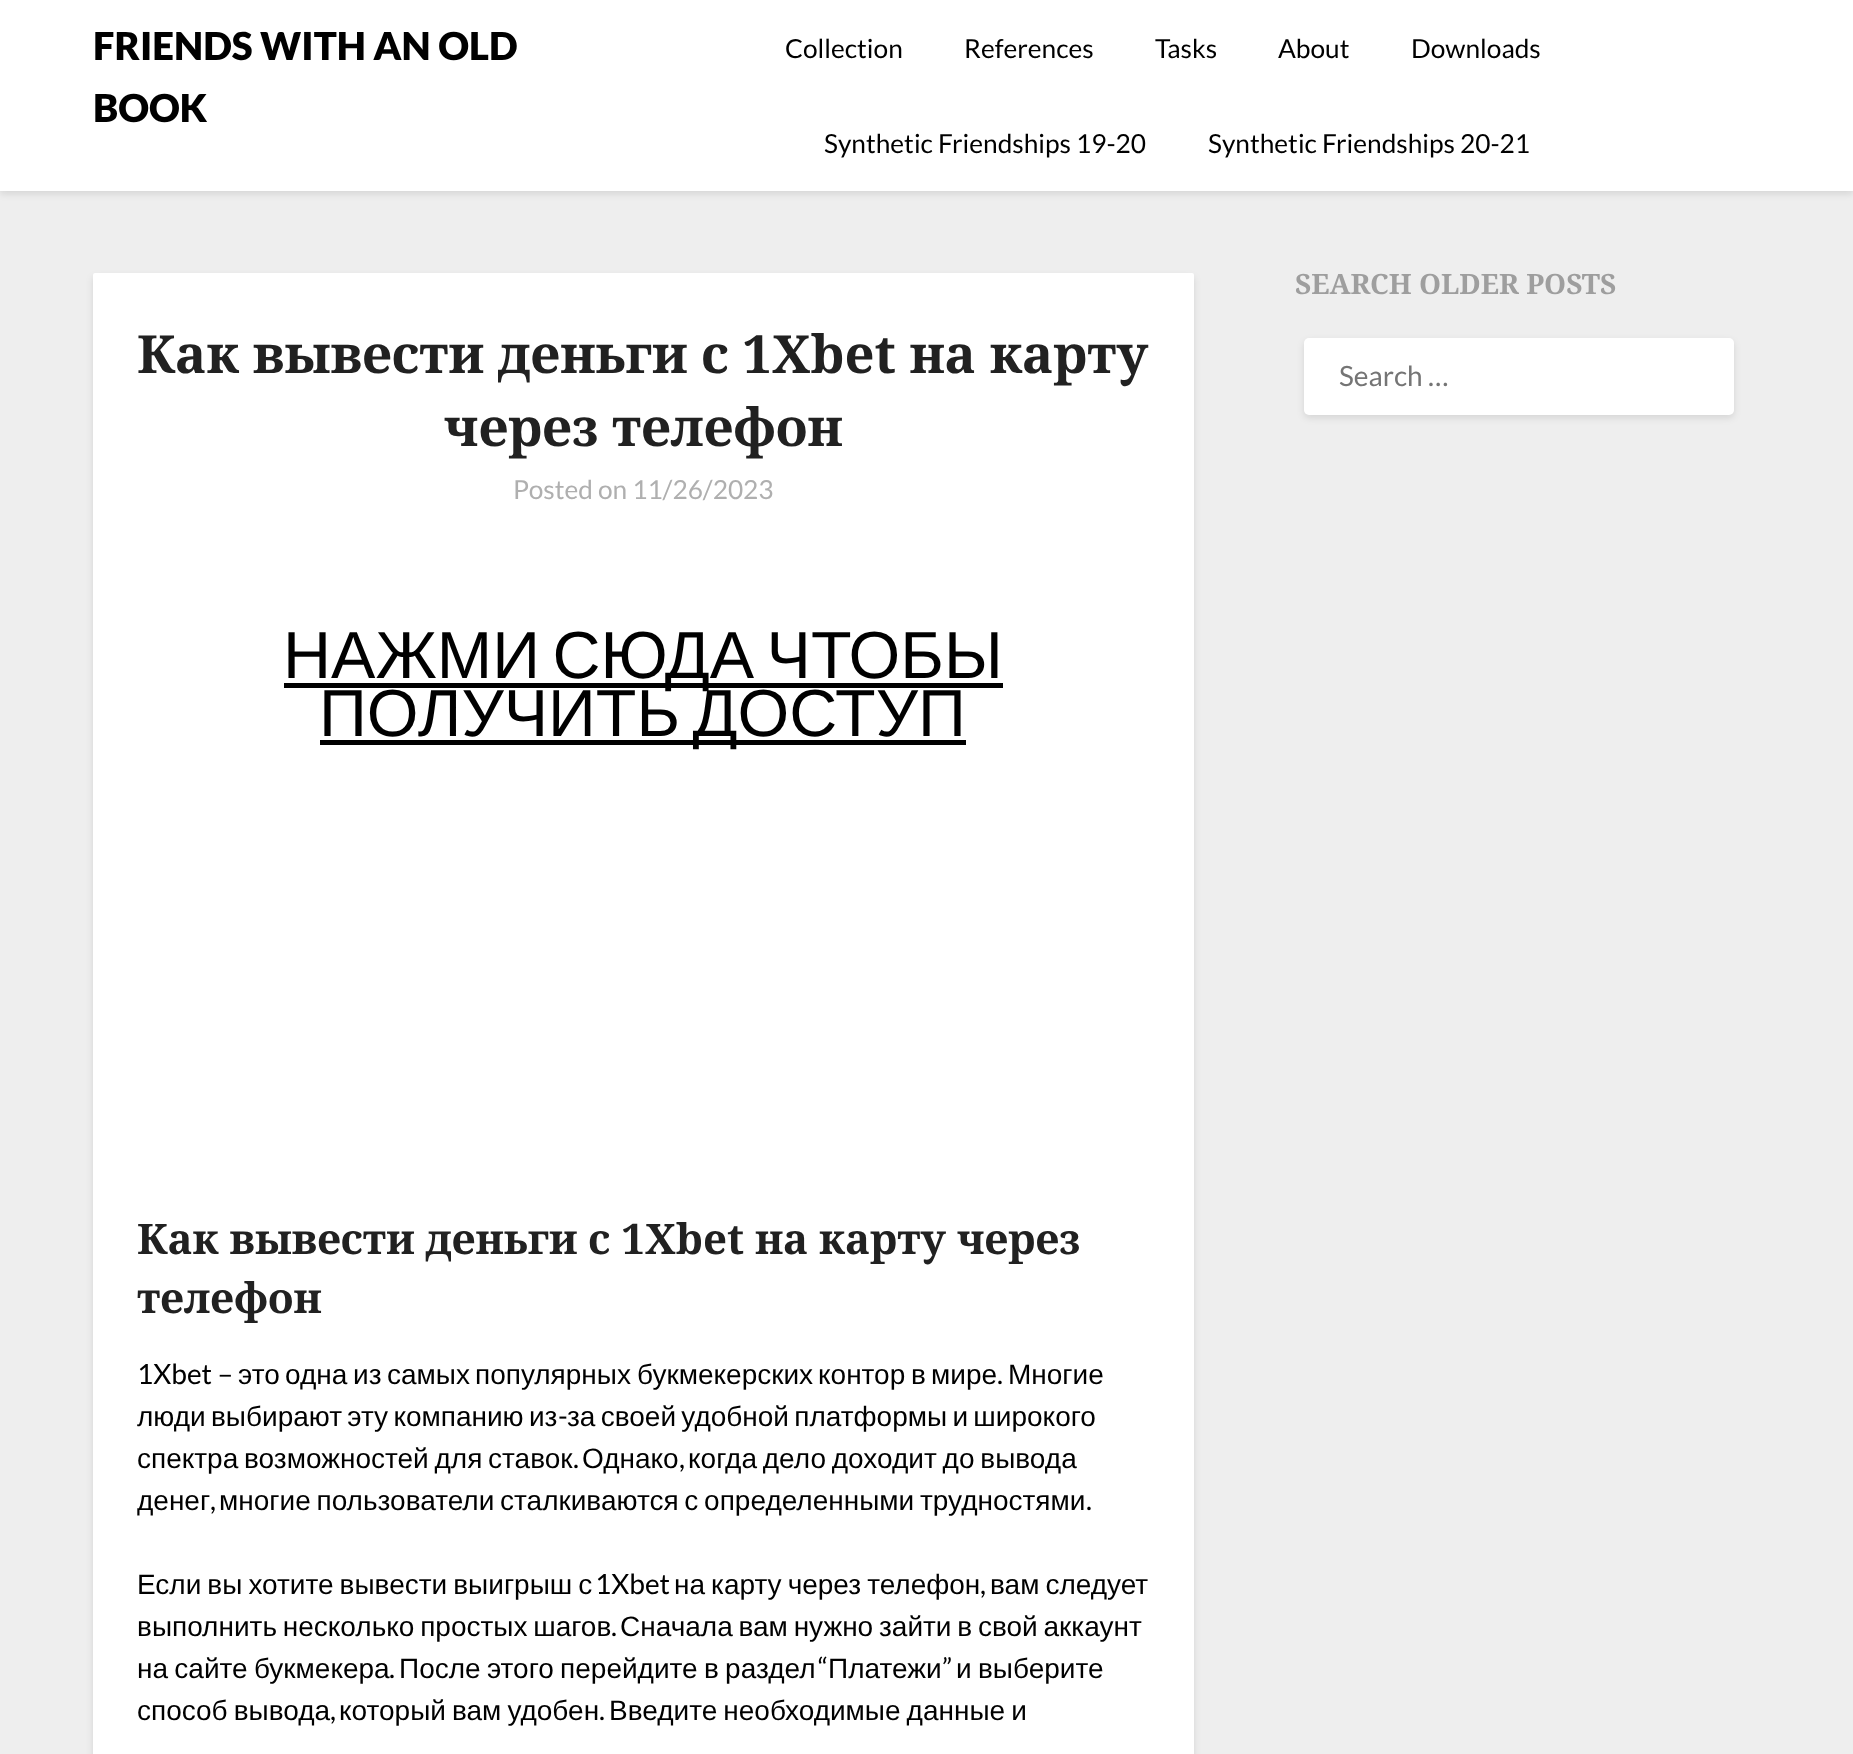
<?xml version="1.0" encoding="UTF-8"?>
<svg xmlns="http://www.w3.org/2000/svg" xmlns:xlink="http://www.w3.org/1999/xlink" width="1853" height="1754">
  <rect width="100%" height="100%" fill="#eeeeee" />
  <rect y="4" width="1853" height="190" fill="#000000" fill-opacity="0.1" filter="blur(3.5px)" />
  <rect width="1853" height="191" fill="#ffffff" />
  <rect x="93" y="277" width="1101" height="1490" rx="2" fill="#000000" fill-opacity="0.1" filter="blur(3.5px)" />
  <rect x="93" y="273" width="1101" height="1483" rx="2" fill="#ffffff" />
  <rect x="284" y="683" width="719" height="5" fill="#000000" />
  <rect x="320" y="740" width="646" height="5" fill="#000000" />
  <rect x="1304" y="341" width="430" height="77" rx="5" fill="#000000" fill-opacity="0.1" filter="blur(3.5px)" />
  <rect x="1304" y="338" width="430" height="77" rx="5" fill="#ffffff" />
  <text x="93" y="60" style="font-family: Lato; font-size: 38.5px; font-weight: 900; fill: #000000">FRIENDS WITH AN OLD</text>
  <text x="93" y="122" style="font-family: Lato; font-size: 38.5px; font-weight: 900; fill: #000000">BOOK</text>
  <text x="785" y="58" style="font-family: Lato; font-size: 26.25px; fill: #000000">Collection</text>
  <text x="964" y="58" style="font-family: Lato; font-size: 26.25px; fill: #000000">References</text>
  <text x="1155" y="58" style="font-family: Lato; font-size: 26.25px; fill: #000000">Tasks</text>
  <text x="1278" y="58" style="font-family: Lato; font-size: 26.25px; fill: #000000">About</text>
  <text x="1411" y="58" style="font-family: Lato; font-size: 26.25px; fill: #000000">Downloads</text>
  <text x="824" y="153" style="font-family: Lato; font-size: 26.25px; fill: #000000">Synthetic Friendships 19-20</text>
  <text x="1208" y="153" style="font-family: Lato; font-size: 26.25px; fill: #000000">Synthetic Friendships 20-21</text>
  <text x="137" y="373" style="font-family: Noto Serif; font-size: 52.5px; font-weight: bold; fill: #212121">Как вывести деньги с 1Xbet на карту</text>
  <text x="444" y="446" style="font-family: Noto Serif; font-size: 52.5px; font-weight: bold; fill: #212121">через телефон</text>
  <text x="513" y="499" style="font-family: Lato; font-size: 26.25px; fill: #afafaf">Posted on 11/26/2023</text>
  <text x="283" y="678" word-spacing="-6" style="font-family: Liberation Sans; font-size: 66.5px; fill: #000000">НАЖМИ СЮДА ЧТОБЫ</text>
  <text x="319" y="736" word-spacing="-6" style="font-family: Liberation Sans; font-size: 66.5px; fill: #000000">ПОЛУЧИТЬ ДОСТУП</text>
  <text x="137" y="1254" style="font-family: Noto Serif; font-size: 42px; font-weight: bold; fill: #212121">Как вывести деньги с 1Xbet на карту через</text>
  <text x="137" y="1313" style="font-family: Noto Serif; font-size: 42px; font-weight: bold; fill: #212121">телефон</text>
  <text x="137" y="1384" style="font-family: Lato; font-size: 28px; fill: #000000">1Xbet –</text>
  <text x="238" y="1384" style="font-family: Liberation Sans; font-size: 28px; fill: #000000">это</text>
  <text x="285" y="1384" style="font-family: Liberation Sans; font-size: 28px; fill: #000000">одна</text>
  <text x="353" y="1384" style="font-family: Liberation Sans; font-size: 28px; fill: #000000">из</text>
  <text x="387" y="1384" style="font-family: Liberation Sans; font-size: 28px; fill: #000000">самых</text>
  <text x="475" y="1384" style="font-family: Liberation Sans; font-size: 28px; fill: #000000">популярных</text>
  <text x="637" y="1384" style="font-family: Liberation Sans; font-size: 28px; fill: #000000">букмекерских</text>
  <text x="818" y="1384" style="font-family: Liberation Sans; font-size: 28px; fill: #000000">контор</text>
  <text x="911" y="1384" style="font-family: Liberation Sans; font-size: 28px; fill: #000000">в</text>
  <text x="931" y="1384" style="font-family: Liberation Sans; font-size: 28px; fill: #000000">мире</text>
  <text x="997" y="1384" style="font-family: Lato; font-size: 28px; fill: #000000">.</text>
  <text x="1008" y="1384" style="font-family: Liberation Sans; font-size: 28px; fill: #000000">Многие</text>
  <text x="137" y="1426" word-spacing="-2.5" style="font-family: Liberation Sans; font-size: 28px; fill: #000000">люди выбирают эту компанию из</text>
  <text x="558" y="1426" style="font-family: Lato; font-size: 28px; fill: #000000">-</text>
  <text x="567" y="1426" word-spacing="-2.5" style="font-family: Liberation Sans; font-size: 28px; fill: #000000">за своей удобной платформы и широкого</text>
  <text x="137" y="1468" word-spacing="-2" style="font-family: Liberation Sans; font-size: 28px; fill: #000000">спектра возможностей для ставок</text>
  <text x="573" y="1468" style="font-family: Lato; font-size: 28px; fill: #000000">.</text>
  <text x="582" y="1468" style="font-family: Liberation Sans; font-size: 28px; fill: #000000">Однако</text>
  <text x="679" y="1468" style="font-family: Lato; font-size: 28px; fill: #000000">,</text>
  <text x="688" y="1468" word-spacing="-2" style="font-family: Liberation Sans; font-size: 28px; fill: #000000">когда дело доходит до вывода</text>
  <text x="137" y="1510" style="font-family: Liberation Sans; font-size: 28px; fill: #000000">денег</text>
  <text x="210" y="1510" style="font-family: Lato; font-size: 28px; fill: #000000">,</text>
  <text x="219" y="1510" word-spacing="-2" style="font-family: Liberation Sans; font-size: 28px; fill: #000000">многие пользователи сталкиваются с определенными трудностями</text>
  <text x="1086" y="1510" style="font-family: Lato; font-size: 28px; fill: #000000">.</text>
  <text x="137" y="1594" word-spacing="-1.75" style="font-family: Liberation Sans; font-size: 28px; fill: #000000">Если вы хотите вывести выигрыш с</text>
  <text x="595" y="1594" style="font-family: Lato; font-size: 28px; fill: #000000">1Xbet</text>
  <text x="674" y="1594" word-spacing="-1.75" style="font-family: Liberation Sans; font-size: 28px; fill: #000000">на карту через телефон</text>
  <text x="980" y="1594" style="font-family: Lato; font-size: 28px; fill: #000000">,</text>
  <text x="990" y="1594" word-spacing="-1.75" style="font-family: Liberation Sans; font-size: 28px; fill: #000000">вам следует</text>
  <text x="137" y="1636" word-spacing="-2" style="font-family: Liberation Sans; font-size: 28px; fill: #000000">выполнить несколько простых шагов</text>
  <text x="611" y="1636" style="font-family: Lato; font-size: 28px; fill: #000000">.</text>
  <text x="620" y="1636" word-spacing="-2" style="font-family: Liberation Sans; font-size: 28px; fill: #000000">Сначала вам нужно зайти в свой аккаунт</text>
  <text x="137" y="1678" word-spacing="-1.5" style="font-family: Liberation Sans; font-size: 28px; fill: #000000">на сайте букмекера</text>
  <text x="389" y="1678" style="font-family: Lato; font-size: 28px; fill: #000000">.</text>
  <text x="399" y="1678" word-spacing="-1.5" style="font-family: Liberation Sans; font-size: 28px; fill: #000000">После этого перейдите в раздел</text>
  <text x="818" y="1678" style="font-family: Lato; font-size: 28px; fill: #000000">“</text>
  <text x="828" y="1678" style="font-family: Liberation Sans; font-size: 28px; fill: #000000">Платежи</text>
  <text x="942" y="1678" style="font-family: Lato; font-size: 28px; fill: #000000">”</text>
  <text x="956" y="1678" word-spacing="-1.5" style="font-family: Liberation Sans; font-size: 28px; fill: #000000">и выберите</text>
  <text x="137" y="1720" word-spacing="-1.75" style="font-family: Liberation Sans; font-size: 28px; fill: #000000">способ вывода</text>
  <text x="330" y="1720" style="font-family: Lato; font-size: 28px; fill: #000000">,</text>
  <text x="339" y="1720" word-spacing="-1.75" style="font-family: Liberation Sans; font-size: 28px; fill: #000000">который вам удобен</text>
  <text x="599" y="1720" style="font-family: Lato; font-size: 28px; fill: #000000">.</text>
  <text x="609" y="1720" word-spacing="-1.75" style="font-family: Liberation Sans; font-size: 28px; fill: #000000">Введите необходимые данные и</text>
  <text x="1295" y="294" style="font-family: Noto Serif; font-size: 28px; font-weight: bold; fill: #9e9e9e">SEARCH OLDER POSTS</text>
  <text x="1339" y="386" style="font-family: Lato; font-size: 28px; fill: #757575">Search …</text>
</svg>
